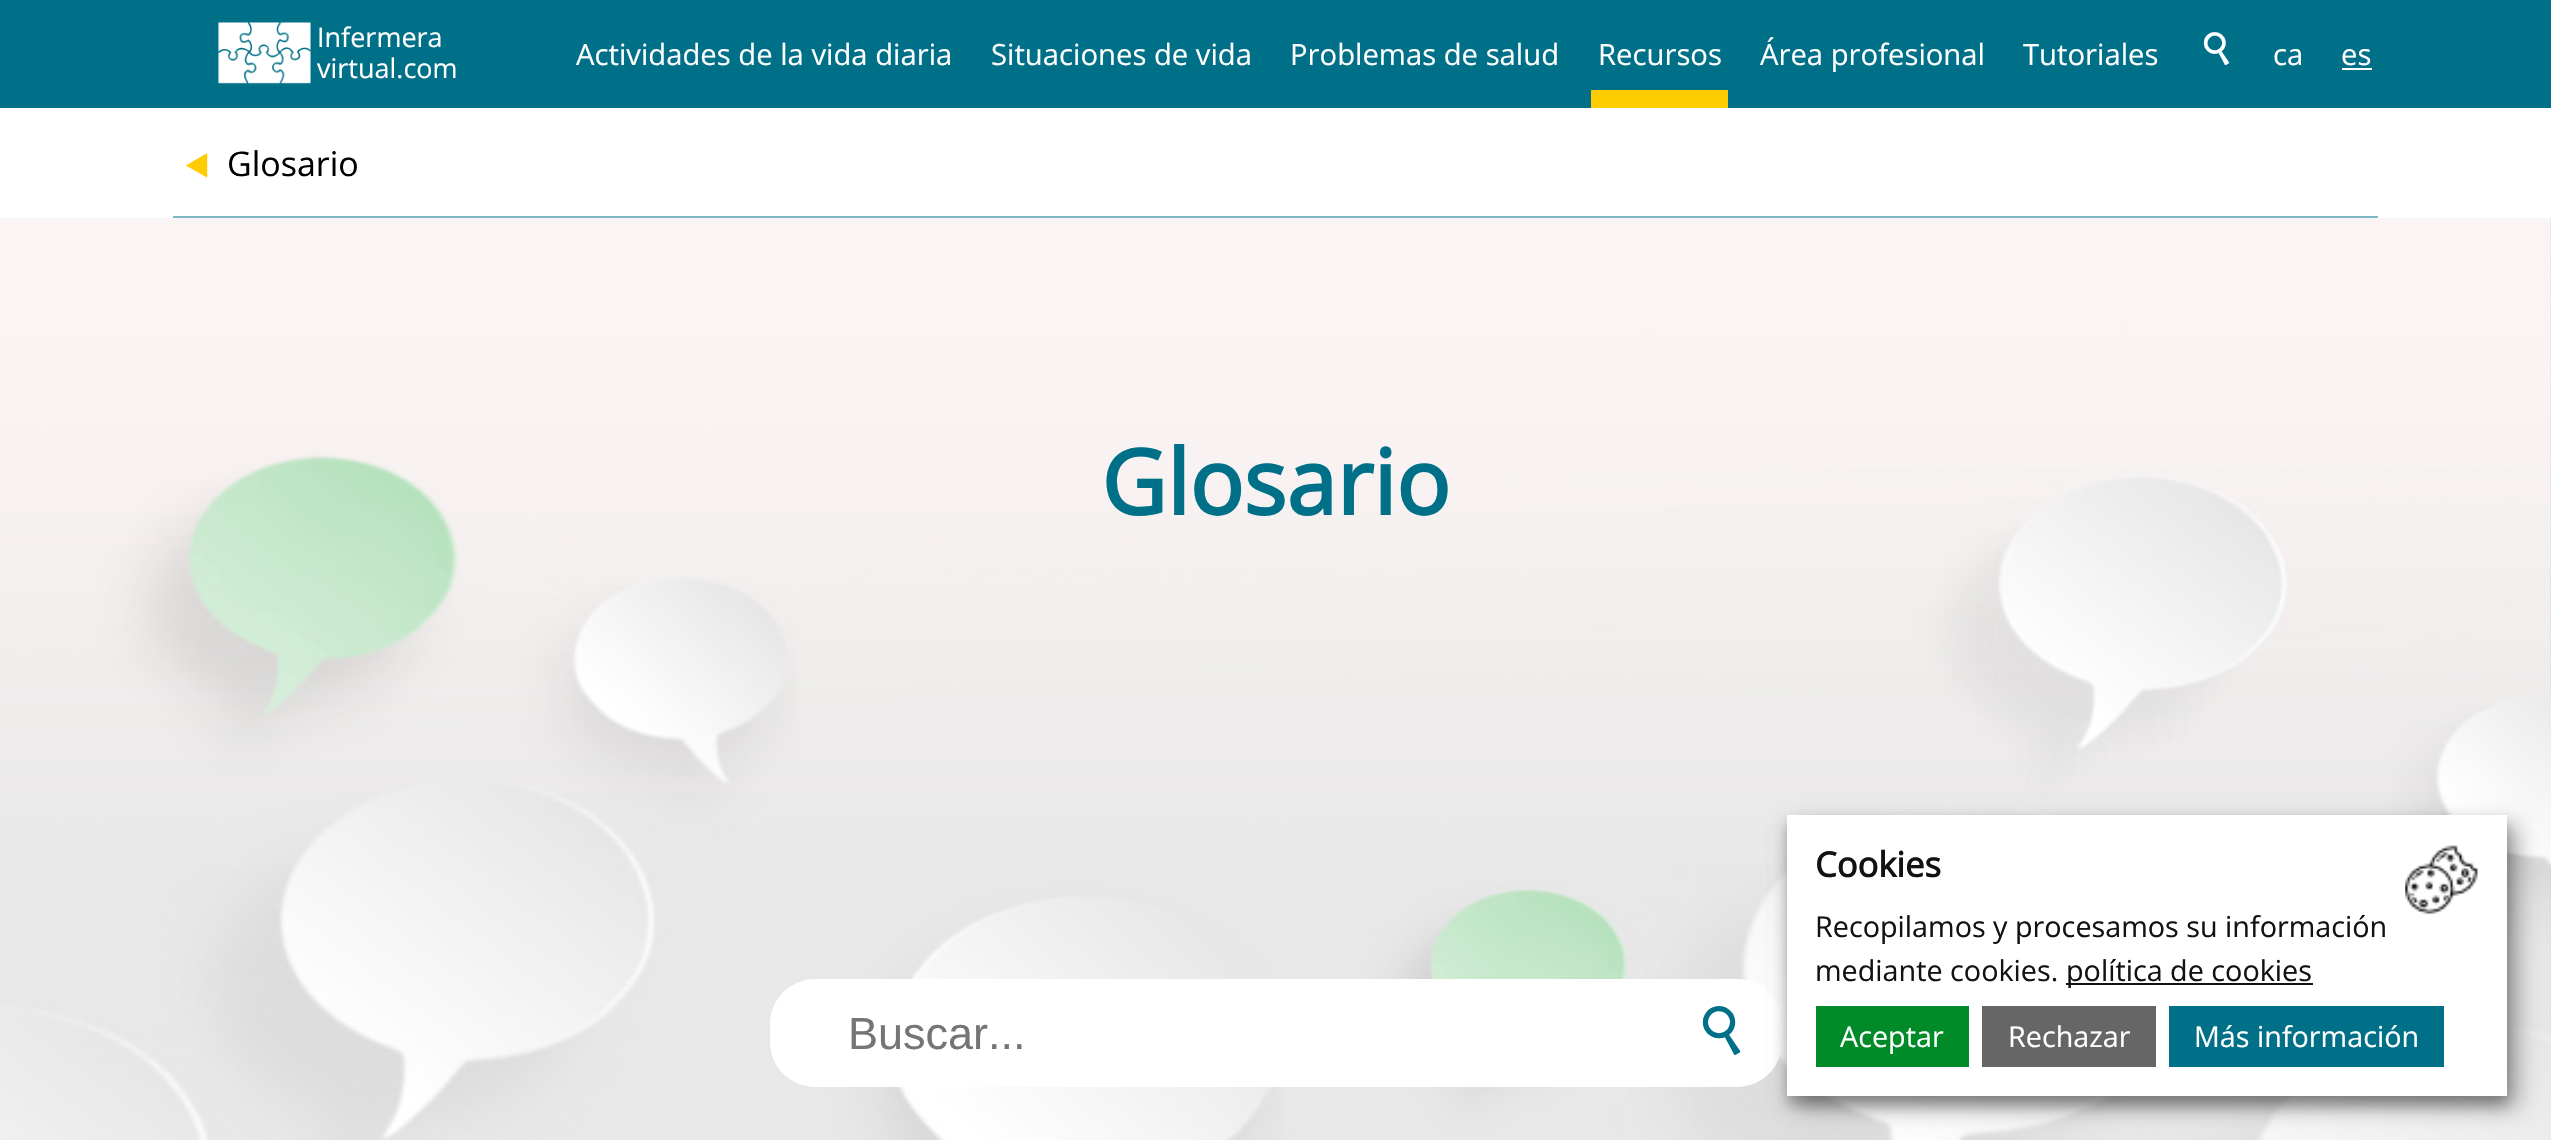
static SkFont makeFont(const char* family, int weight, float size, bool italic = false) {
  SkFontStyle style(weight, SkFontStyle::kNormal_Width,
    italic ? SkFontStyle::kItalic_Slant : SkFontStyle::kUpright_Slant);
  SkFont result(fontMgr->matchFamilyStyle(family, style), size);
  result.setSubpixel(true);
  return result;
}

static void text(SkCanvas* c, const char* s, float x, float y, const SkFont& font, SkColor color) {
  SkPaint ink(SkColor4f::FromColor(color));
  ink.setAntiAlias(true);
  c->drawString(s, x, y, font, ink);
}

static void box(SkCanvas* c, float l, float t, float r, float b, SkColor color) {
  SkPaint ink(SkColor4f::FromColor(color));
  ink.setAntiAlias(true);
  c->drawRect(SkRect::MakeLTRB(l, t, r, b), ink);
}

static void roundBox(SkCanvas* c, float l, float t, float r, float b, float radius, SkColor color) {
  SkPaint ink(SkColor4f::FromColor(color));
  ink.setAntiAlias(true);
  c->drawRoundRect(SkRect::MakeLTRB(l, t, r, b), radius, radius, ink);
}

static void picture(SkCanvas* c, const char* path, float l, float t, float r, float b) {
  auto image = SkImages::DeferredFromEncodedData(SkData::MakeFromFileName(path));
  c->drawImageRect(image, SkRect::MakeLTRB(l, t, r, b), SkSamplingOptions());
}

void draw(SkCanvas* c) {
  SkPaint paint;
  paint.setAntiAlias(true);
  c->clear(0xffffffff);
  box(c, 0, 0, 2551, 108, 0xff007088);
  picture(c, "img_01.png", 218, 22, 311, 84);
  SkFont face1 = makeFont("Open Sans", 400, 27);
  text(c, "Infermera", 317, 47, face1, 0xffffffff);
  text(c, "virtual.com", 317, 78, face1, 0xffffffff);
  SkFont face2 = makeFont("Open Sans", 400, 29.25f);
  text(c, "Actividades de la vida diaria", 576, 65, face2, 0xffffffff);
  text(c, "Situaciones de vida", 991, 65, face2, 0xffffffff);
  text(c, "Problemas de salud", 1290, 65, face2, 0xffffffff);
  box(c, 1591, 90, 1728, 108, 0xffffcc00);
  text(c, "Recursos", 1598, 65, face2, 0xffffffff);
  text(c, "Área profesional", 1760, 65, face2, 0xffffffff);
  text(c, "Tutoriales", 2023, 65, face2, 0xffffffff);
  SkFont face3 = makeFont("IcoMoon", 400, 47);
  text(c, "s", 2200, 65, face3, 0xffffffff);
  text(c, "ca", 2273, 65, face2, 0xffffffff);
  text(c, "es", 2341, 65, face2, 0xffffffff);
  box(c, 2342, 68, 2372, 70, 0xffffffff);
  box(c, 173, 216, 2378, 218, 0xff7fb7c3);
  SkFont face4 = makeFont("IcoMoon", 400, 56);
  text(c, "{", 177, 185, face4, 0xffffcc00);
  SkFont face5 = makeFont("Open Sans", 400, 34);
  text(c, "Glosario", 227, 176, face5, 0xff000000);
  picture(c, "img_02.png", 0, 218, 2551, 1140);
  SkFont face6 = makeFont("Open Sans", 700, 90);
  text(c, "Glosario", 1101, 515, face6, 0xff007088);
  roundBox(c, 770, 979, 1782, 1087, 45, 0xffffffff);
  SkFont face7 = makeFont("Liberation Sans", 400, 45);
  text(c, "Buscar...", 848, 1049, face7, 0xff757575);
  SkFont face8 = makeFont("IcoMoon", 400, 70);
  text(c, "s", 1697, 1055, face8, 0xff007088);
  paint.setColor(0x4d000000);
  paint.setMaskFilter(SkMaskFilter::MakeBlur(kNormal_SkBlurStyle, 11));
  c->drawRect(SkRect::MakeLTRB(1798, 826, 2518, 1107), paint);
  paint.setMaskFilter(nullptr);
  paint.setMaskFilter(SkMaskFilter::MakeBlur(kNormal_SkBlurStyle, 7));
  c->drawRect(SkRect::MakeLTRB(1787, 824, 2507, 1105), paint);
  paint.setMaskFilter(nullptr);
  box(c, 1787, 815, 2507, 1096, 0xffffffff);
  SkFont face9 = makeFont("Open Sans", 700, 34.5f);
  text(c, "Cookies", 1815, 877, face9, 0xff121212);
  SkFont face10 = makeFont("Open Sans", 400, 28.75f);
  text(c, "Recopilamos y procesamos su información", 1815, 937, face10, 0xff121212);
  text(c, "mediante cookies.", 1815, 981, face10, 0xff121212);
  box(c, 2066, 983, 2313, 985, 0xff121212);
  text(c, "política de cookies", 2066, 981, face10, 0xff121212);
  picture(c, "img_03.png", 2405, 845, 2478, 915);
  box(c, 1816, 1006, 1969, 1067, 0xff008a28);
  text(c, "Aceptar", 1840, 1047, face10, 0xffffffff);
  box(c, 1982, 1006, 2156, 1067, 0xff666666);
  text(c, "Rechazar", 2008, 1047, face10, 0xffffffff);
  box(c, 2169, 1006, 2444, 1067, 0xff007088);
  text(c, "Más información", 2194, 1047, face10, 0xffffffff);
}
